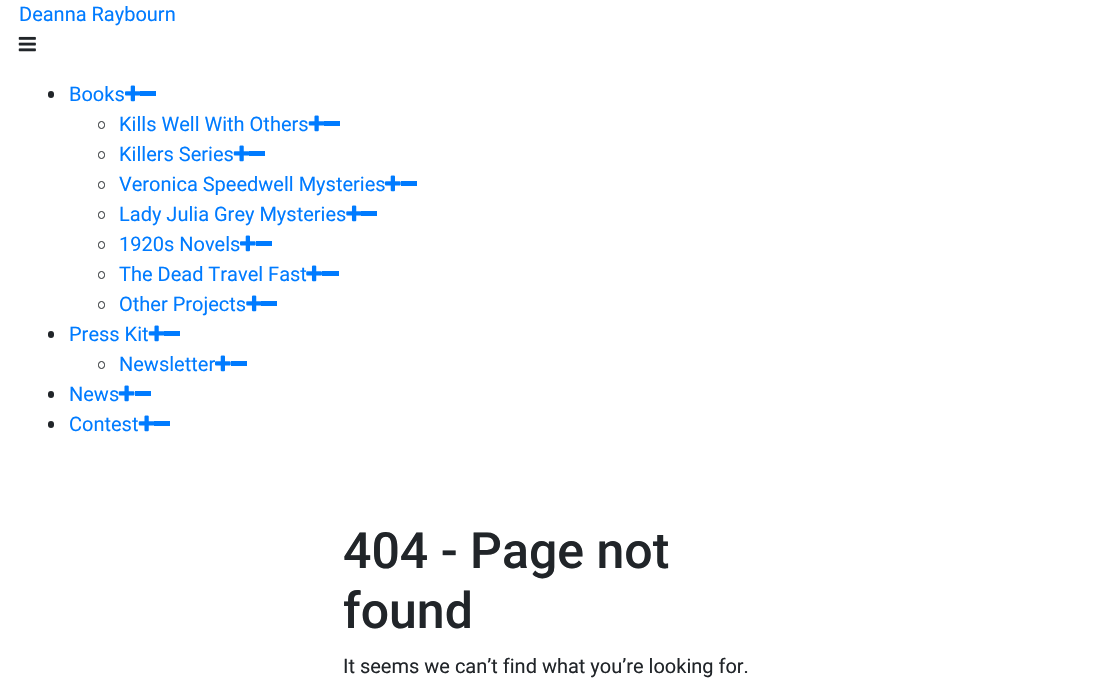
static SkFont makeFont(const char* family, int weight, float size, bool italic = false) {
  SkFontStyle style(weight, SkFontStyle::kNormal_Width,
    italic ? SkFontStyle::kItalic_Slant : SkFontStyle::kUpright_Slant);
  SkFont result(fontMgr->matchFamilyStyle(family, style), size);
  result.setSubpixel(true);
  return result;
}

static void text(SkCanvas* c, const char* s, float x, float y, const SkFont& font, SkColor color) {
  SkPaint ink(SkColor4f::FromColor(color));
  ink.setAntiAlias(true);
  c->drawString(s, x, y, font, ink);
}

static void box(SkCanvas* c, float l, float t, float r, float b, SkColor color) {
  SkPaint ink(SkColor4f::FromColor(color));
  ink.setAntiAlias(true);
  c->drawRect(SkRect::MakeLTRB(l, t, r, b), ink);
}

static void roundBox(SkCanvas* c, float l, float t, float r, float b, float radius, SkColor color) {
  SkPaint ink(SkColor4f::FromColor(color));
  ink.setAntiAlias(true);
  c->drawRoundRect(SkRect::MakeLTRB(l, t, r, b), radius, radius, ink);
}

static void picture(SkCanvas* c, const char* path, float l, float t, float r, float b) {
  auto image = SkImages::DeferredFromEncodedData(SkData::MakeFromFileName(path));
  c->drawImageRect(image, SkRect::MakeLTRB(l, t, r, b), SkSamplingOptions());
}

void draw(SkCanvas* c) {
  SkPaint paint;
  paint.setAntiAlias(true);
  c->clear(0xffffffff);
  SkFont face1 = makeFont("Roboto", 400, 20);
  text(c, "Deanna Raybourn", 19, 21, face1, 0xff007bff);
  picture(c, "img_01.png", 18, 36, 36, 52);
  roundBox(c, 48, 91, 54, 98, 3, 0xff212529);
  text(c, "Books", 69, 101, face1, 0xff007bff);
  picture(c, "img_02.png", 125, 85, 140, 102);
  box(c, 140, 91, 156, 96, 0xff007bff);
  paint.setStyle(SkPaint::kStroke_Style);
  paint.setStrokeWidth(1);
  paint.setColor(0xff212529);
  c->drawRoundRect(SkRect::MakeLTRB(98.5f, 121.5f, 104.5f, 128.5f), 3, 3, paint);
  text(c, "Kills Well With Others", 119, 131, face1, 0xff007bff);
  picture(c, "img_03.png", 308, 115, 324, 132);
  box(c, 324, 121, 340, 126, 0xff007bff);
  c->drawRoundRect(SkRect::MakeLTRB(98.5f, 151.5f, 104.5f, 158.5f), 3, 3, paint);
  text(c, "Killers Series", 119, 161, face1, 0xff007bff);
  picture(c, "img_03.png", 233, 145, 249, 162);
  box(c, 249, 151, 265, 156, 0xff007bff);
  c->drawRoundRect(SkRect::MakeLTRB(98.5f, 181.5f, 104.5f, 188.5f), 3, 3, paint);
  text(c, "Veronica Speedwell Mysteries", 119, 191, face1, 0xff007bff);
  picture(c, "img_04.png", 385, 175, 401, 192);
  box(c, 401, 181, 417, 186, 0xff007bff);
  c->drawRoundRect(SkRect::MakeLTRB(98.5f, 211.5f, 104.5f, 218.5f), 3, 3, paint);
  text(c, "Lady Julia Grey Mysteries", 119, 221, face1, 0xff007bff);
  picture(c, "img_05.png", 346, 205, 361, 222);
  box(c, 361, 211, 377, 216, 0xff007bff);
  c->drawRoundRect(SkRect::MakeLTRB(98.5f, 241.5f, 104.5f, 248.5f), 3, 3, paint);
  text(c, "1920s Novels", 119, 251, face1, 0xff007bff);
  picture(c, "img_04.png", 240, 235, 256, 252);
  box(c, 256, 241, 272, 246, 0xff007bff);
  c->drawRoundRect(SkRect::MakeLTRB(98.5f, 271.5f, 104.5f, 278.5f), 3, 3, paint);
  text(c, "The Dead Travel Fast", 119, 281, face1, 0xff007bff);
  picture(c, "img_06.png", 306, 265, 322, 282);
  box(c, 322, 271, 339, 276, 0xff007bff);
  c->drawRoundRect(SkRect::MakeLTRB(98.5f, 301.5f, 104.5f, 308.5f), 3, 3, paint);
  text(c, "Other Projects", 119, 311, face1, 0xff007bff);
  picture(c, "img_05.png", 246, 295, 261, 312);
  box(c, 261, 301, 277, 306, 0xff007bff);
  roundBox(c, 48, 331, 54, 338, 3, 0xff212529);
  text(c, "Press Kit", 69, 341, face1, 0xff007bff);
  picture(c, "img_03.png", 148, 325, 164, 342);
  box(c, 164, 331, 180, 336, 0xff007bff);
  c->drawRoundRect(SkRect::MakeLTRB(98.5f, 361.5f, 104.5f, 368.5f), 3, 3, paint);
  text(c, "Newsletter", 119, 371, face1, 0xff007bff);
  picture(c, "img_04.png", 215, 355, 231, 372);
  box(c, 231, 361, 247, 366, 0xff007bff);
  roundBox(c, 48, 391, 54, 398, 3, 0xff212529);
  text(c, "News", 69, 401, face1, 0xff007bff);
  picture(c, "img_07.png", 118, 385, 135, 402);
  box(c, 135, 391, 151, 396, 0xff007bff);
  roundBox(c, 48, 421, 54, 428, 3, 0xff212529);
  text(c, "Contest", 69, 431, face1, 0xff007bff);
  picture(c, "img_03.png", 138, 415, 154, 432);
  box(c, 154, 421, 170, 426, 0xff007bff);
  SkFont face2 = makeFont("Roboto", 500, 50);
  text(c, "404 - Page not", 343, 568, face2, 0xff212529);
  text(c, "found", 343, 628, face2, 0xff212529);
  text(c, "It seems we can’t find what you’re looking for.", 343, 673, face1, 0xff212529);
}
